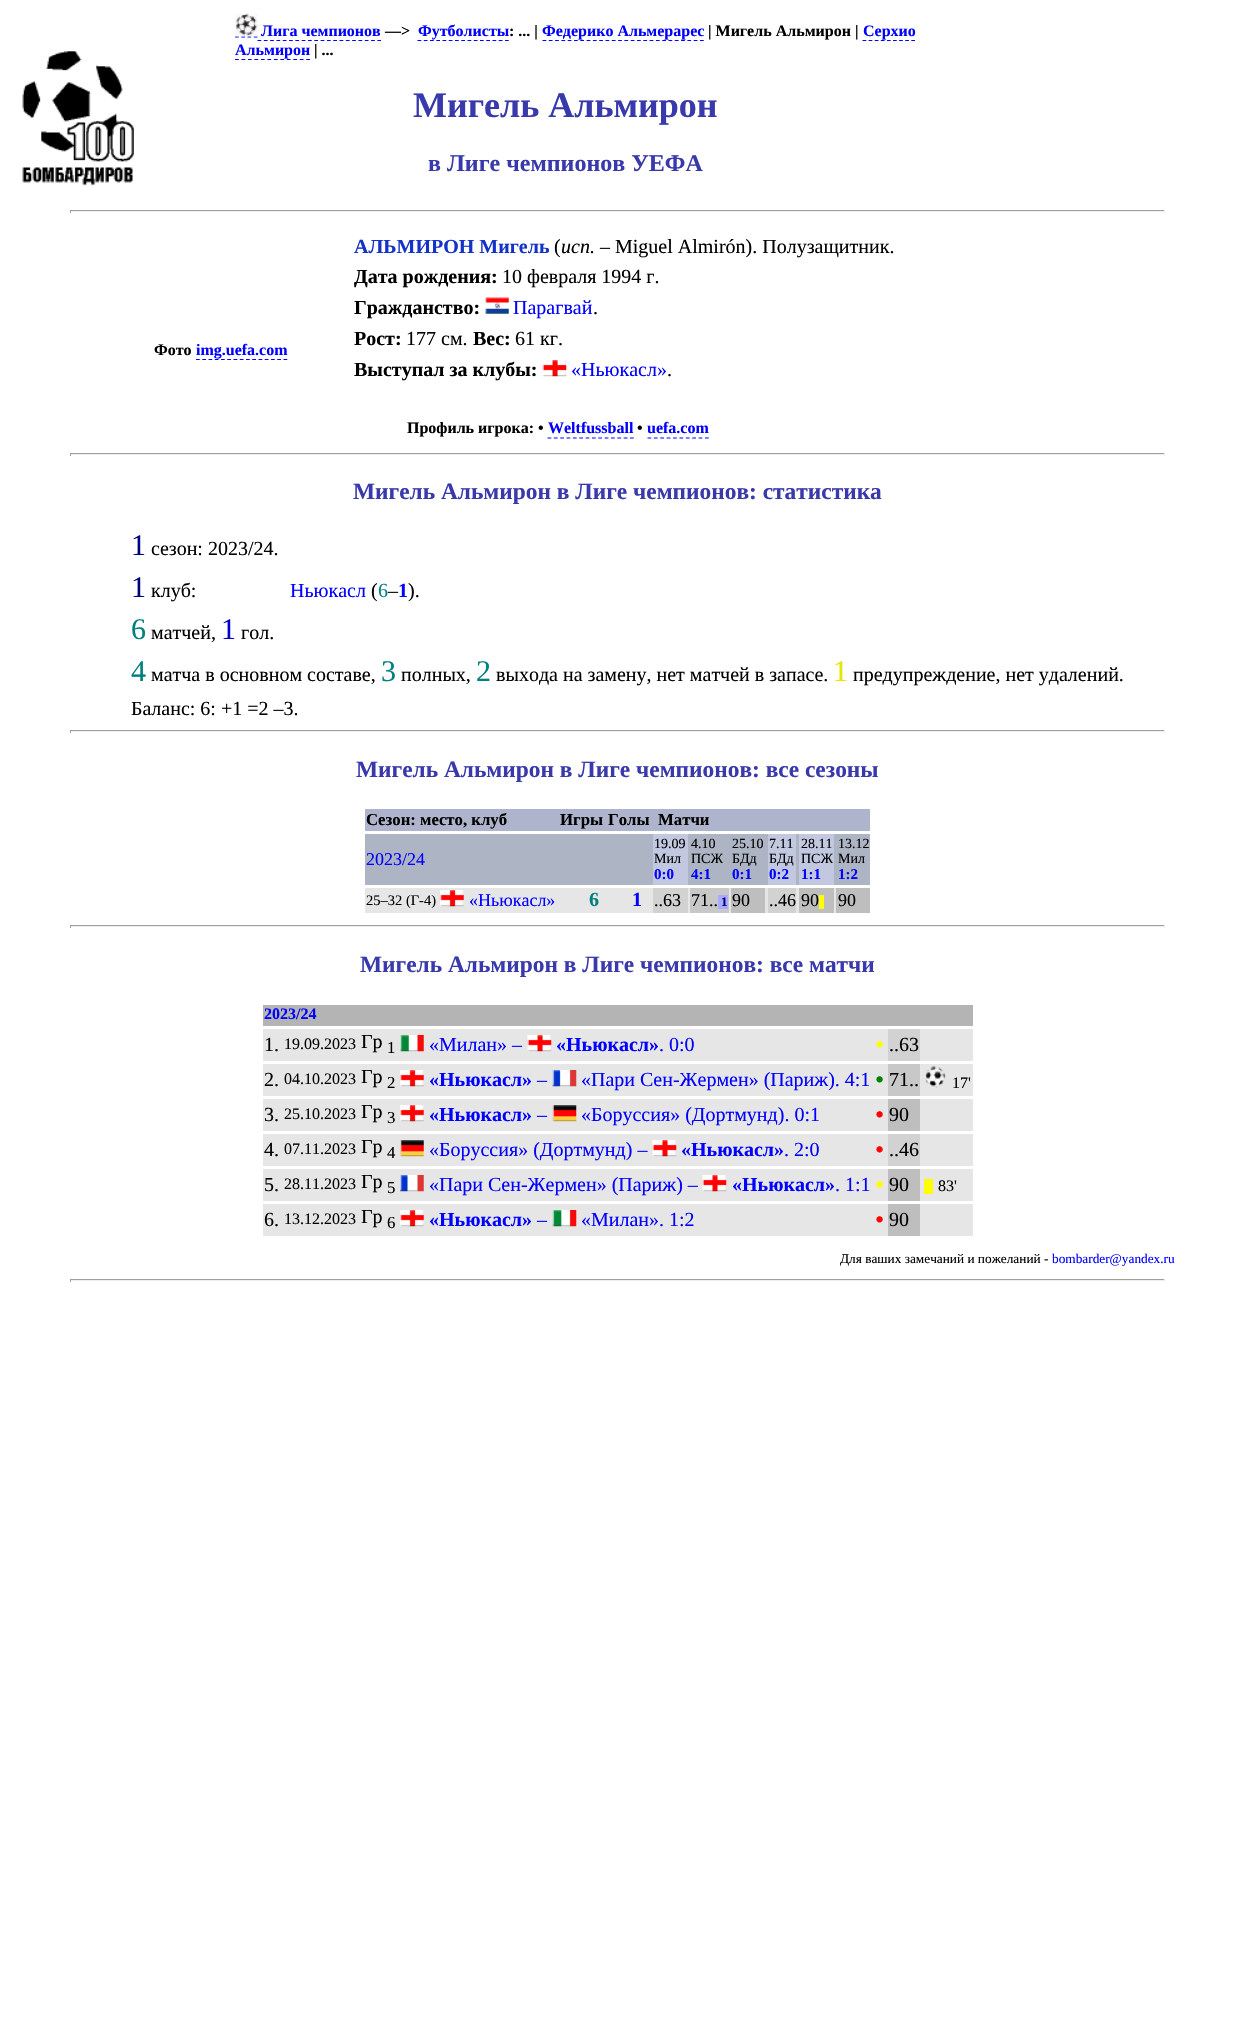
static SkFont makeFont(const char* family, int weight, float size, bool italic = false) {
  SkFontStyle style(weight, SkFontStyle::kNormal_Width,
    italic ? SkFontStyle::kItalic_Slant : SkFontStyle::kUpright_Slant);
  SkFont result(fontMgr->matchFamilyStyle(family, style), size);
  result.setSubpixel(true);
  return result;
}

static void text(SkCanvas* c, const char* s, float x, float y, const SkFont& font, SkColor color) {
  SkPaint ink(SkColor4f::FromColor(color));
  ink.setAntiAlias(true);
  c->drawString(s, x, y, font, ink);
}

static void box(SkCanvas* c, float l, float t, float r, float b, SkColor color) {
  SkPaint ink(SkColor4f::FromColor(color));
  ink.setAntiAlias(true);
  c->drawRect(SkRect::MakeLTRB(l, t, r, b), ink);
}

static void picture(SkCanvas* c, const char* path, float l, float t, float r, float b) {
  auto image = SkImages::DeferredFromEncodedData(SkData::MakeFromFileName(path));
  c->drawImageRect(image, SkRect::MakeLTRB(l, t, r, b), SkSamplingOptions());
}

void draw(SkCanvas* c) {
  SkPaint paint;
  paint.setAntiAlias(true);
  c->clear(0xffffffff);
  picture(c, "img_01.png", 22, 51, 134, 186);
  paint.setStyle(SkPaint::kStroke_Style);
  paint.setStrokeWidth(1.2f);
  paint.setColor(0xff0000ff);
  paint.setPathEffect(SkDashPathEffect::Make({{3.75f, 2.5f}}, 0));
  c->drawPath(SkPathBuilder().moveTo(235, 37).lineTo(257.5f, 37).detach(), paint);
  paint.setPathEffect(nullptr);
  picture(c, "img_02.png", 235, 13, 258, 37);
  SkFont face1 = makeFont("Liberation Serif", 700, 16);
  text(c, "Лига чемпионов", 261, 36, face1, 0xff0000ff);
  paint.setPathEffect(SkDashPathEffect::Make({{3.75f, 2.56f}}, 0));
  c->drawPath(SkPathBuilder().moveTo(257.5f, 40.5f).lineTo(381, 40.5f).detach(), paint);
  paint.setPathEffect(nullptr);
  text(c, "—>", 385, 36, face1, 0xff000000);
  paint.setPathEffect(SkDashPathEffect::Make({{3.75f, 2.5f}}, 0));
  c->drawPath(SkPathBuilder().moveTo(417.5f, 40.5f).lineTo(509, 40.5f).detach(), paint);
  paint.setPathEffect(nullptr);
  text(c, "Футболисты", 418, 36, face1, 0xff0000ff);
  text(c, ": ... |", 509, 36, face1, 0xff000000);
  paint.setPathEffect(SkDashPathEffect::Make({{3.75f, 2.55f}}, 0));
  c->drawPath(SkPathBuilder().moveTo(542.5f, 40.5f).lineTo(704, 40.5f).detach(), paint);
  paint.setPathEffect(nullptr);
  text(c, "Федерико Альмерарес", 542, 36, face1, 0xff0000ff);
  text(c, "| Мигель Альмирон |", 708, 36, face1, 0xff000000);
  paint.setPathEffect(SkDashPathEffect::Make({{3.75f, 2.35f}}, 0));
  c->drawPath(SkPathBuilder().moveTo(862.5f, 40.5f).lineTo(915, 40.5f).detach(), paint);
  paint.setPathEffect(nullptr);
  text(c, "Серхио", 863, 36, face1, 0xff0000ff);
  paint.setPathEffect(SkDashPathEffect::Make({{3.75f, 2.73f}}, 0));
  c->drawPath(SkPathBuilder().moveTo(235, 59.5f).lineTo(310, 59.5f).detach(), paint);
  paint.setPathEffect(nullptr);
  text(c, "Альмирон", 235, 55, face1, 0xff0000ff);
  text(c, "| ...", 314, 55, face1, 0xff000000);
  SkFont face2 = makeFont("Liberation Serif", 700, 36);
  text(c, "Мигель Альмирон", 413, 117, face2, 0xff3939ac);
  SkFont face3 = makeFont("Liberation Serif", 700, 24);
  text(c, "в Лиге чемпионов УЕФА", 428, 171, face3, 0xff3939ac);
  box(c, 70, 210, 1165, 211, 0xff9f9f9f);
  box(c, 1164, 210, 1165, 213, 0xffeeeeee);
  box(c, 70, 211, 1165, 212, 0xffeeeeee);
  box(c, 70, 210, 71, 213, 0xff9f9f9f);
  text(c, "Фото", 154, 355, face1, 0xff000000);
  paint.setPathEffect(SkDashPathEffect::Make({{3.75f, 2.5f}}, 0));
  c->drawPath(SkPathBuilder().moveTo(196, 359.5f).lineTo(287.5f, 359.5f).detach(), paint);
  paint.setPathEffect(nullptr);
  text(c, "img.uefa.com", 196, 355, face1, 0xff0000ff);
  SkFont face4 = makeFont("Liberation Serif", 700, 20);
  text(c, "АЛЬМИРОН Мигель", 354, 253, face4, 0xff1432c8);
  SkFont face5 = makeFont("Liberation Serif", 400, 20);
  text(c, "(", 554, 253, face5, 0xff000000);
  SkFont face6 = makeFont("Liberation Serif", 400, 20, true);
  text(c, "исп.", 561, 253, face6, 0xff000000);
  text(c, "– Miguel Almirón). Полузащитник.", 600, 253, face5, 0xff000000);
  text(c, "Дата рождения:", 354, 283, face4, 0xff000000);
  text(c, "10 февраля 1994 г.", 502, 283, face5, 0xff000000);
  text(c, "Гражданство:", 354, 314, face4, 0xff000000);
  picture(c, "img_03.png", 485, 297, 509, 314);
  text(c, "Парагвай", 513, 314, face5, 0xff0000ff);
  text(c, ".", 593, 314, face5, 0xff000000);
  text(c, "Рост:", 354, 345, face4, 0xff000000);
  text(c, "177 см.", 406, 345, face5, 0xff000000);
  text(c, "Вес:", 473, 345, face4, 0xff000000);
  text(c, "61 кг.", 515, 345, face5, 0xff000000);
  text(c, "Выступал за клубы:", 354, 376, face4, 0xff000000);
  picture(c, "img_04.png", 542, 360, 567, 377);
  text(c, "«Ньюкасл»", 571, 376, face5, 0xff0000ff);
  text(c, ".", 667, 376, face5, 0xff000000);
  text(c, "Профиль игрока: •", 407, 433, face1, 0xff000000);
  text(c, "Weltfussball", 548, 433, face1, 0xff0000ff);
  paint.setPathEffect(SkDashPathEffect::Make({{3.75f, 2.6f}}, 0));
  c->drawPath(SkPathBuilder().moveTo(547.5f, 438).lineTo(634, 438).detach(), paint);
  paint.setPathEffect(nullptr);
  text(c, "•", 637, 433, face1, 0xff000000);
  text(c, "uefa.com", 647, 433, face1, 0xff0000ff);
  paint.setPathEffect(SkDashPathEffect::Make({{3.75f, 2.64f}}, 0));
  c->drawPath(SkPathBuilder().moveTo(647.5f, 438).lineTo(709, 438).detach(), paint);
  paint.setPathEffect(nullptr);
  box(c, 70, 453, 1165, 454, 0xff9f9f9f);
  box(c, 1164, 453, 1165, 456, 0xffeeeeee);
  box(c, 70, 454, 1165, 455, 0xffeeeeee);
  box(c, 70, 453, 71, 456, 0xff9f9f9f);
  SkFont face7 = makeFont("Liberation Serif", 700, 23.4f);
  text(c, "Мигель Альмирон в Лиге чемпионов: статистика", 353, 499, face7, 0xff3939ac);
  SkFont face8 = makeFont("Liberation Serif", 400, 30);
  text(c, "1", 131, 555, face8, 0xff00007f);
  text(c, "сезон: 2023/24.", 151, 555, face5, 0xff000000);
  text(c, "1", 131, 597, face8, 0xff00007f);
  text(c, "клуб:", 151, 597, face5, 0xff000000);
  text(c, "Ньюкасл", 290, 597, face5, 0xff0000ff);
  text(c, "(", 371, 597, face5, 0xff000000);
  text(c, "6", 378, 597, face5, 0xff007f7f);
  text(c, "–", 388, 597, face5, 0xff000000);
  text(c, "1", 398, 597, face4, 0xff0000ff);
  text(c, ").", 408, 597, face5, 0xff000000);
  text(c, "6", 131, 639, face8, 0xff007f7f);
  text(c, "матчей,", 151, 639, face5, 0xff000000);
  text(c, "1", 221, 639, face8, 0xff0000c8);
  text(c, "гол.", 241, 639, face5, 0xff000000);
  text(c, "4", 131, 681, face8, 0xff007f7f);
  text(c, "матча в основном составе,", 151, 681, face5, 0xff000000);
  text(c, "3", 381, 681, face8, 0xff007f7f);
  text(c, "полных,", 401, 681, face5, 0xff000000);
  text(c, "2", 476, 681, face8, 0xff007f7f);
  text(c, "выхода на замену, нет матчей в запасе.", 496, 681, face5, 0xff000000);
  text(c, "1", 833, 681, face8, 0xffe6e600);
  text(c, "предупреждение, нет удалений.", 853, 681, face5, 0xff000000);
  text(c, "Баланс: 6: +1 =2 –3.", 131, 715, face5, 0xff000000);
  box(c, 70, 730, 1165, 731, 0xff9f9f9f);
  box(c, 1164, 730, 1165, 733, 0xffeeeeee);
  box(c, 70, 731, 1165, 732, 0xffeeeeee);
  box(c, 70, 730, 71, 733, 0xff9f9f9f);
  text(c, "Мигель Альмирон в Лиге чемпионов: все сезоны", 356, 777, face7, 0xff3939ac);
  box(c, 365, 809, 870, 831, 0xffadb4cb);
  SkFont face9 = makeFont("Liberation Serif", 700, 16.75f);
  text(c, "Сезон: место, клуб", 366, 825, face9, 0xff000000);
  text(c, "Игры", 560, 825, face9, 0xff000000);
  text(c, "Голы", 608, 825, face9, 0xff000000);
  text(c, "Матчи", 658, 825, face9, 0xff000000);
  box(c, 365, 834, 870, 885, 0xffadb4c3);
  SkFont face10 = makeFont("Liberation Serif", 400, 18);
  text(c, "2023/24", 366, 865, face10, 0xff0000ff);
  box(c, 653, 834, 688, 885, 0xffc1c8df);
  SkFont face11 = makeFont("Liberation Serif", 400, 14);
  text(c, "19.09", 654, 848, face11, 0xff000000);
  text(c, "Мил", 654, 863, face11, 0xff000000);
  SkFont face12 = makeFont("Liberation Serif", 700, 15);
  text(c, "0:0", 654, 879, face12, 0xff0000ff);
  text(c, "4.10", 691, 848, face11, 0xff000000);
  text(c, "ПСЖ", 691, 863, face11, 0xff000000);
  text(c, "4:1", 691, 879, face12, 0xff0000ff);
  text(c, "25.10", 732, 848, face11, 0xff000000);
  text(c, "БДд", 732, 863, face11, 0xff000000);
  text(c, "0:1", 732, 879, face12, 0xff0000ff);
  box(c, 768, 834, 796, 885, 0xffc1c8df);
  text(c, "7.11", 769, 848, face11, 0xff000000);
  text(c, "БДд", 769, 863, face11, 0xff000000);
  text(c, "0:2", 769, 879, face12, 0xff0000ff);
  box(c, 799, 834, 834, 885, 0xffc1c8df);
  text(c, "28.11", 801, 848, face11, 0xff000000);
  text(c, "ПСЖ", 801, 863, face11, 0xff000000);
  text(c, "1:1", 801, 879, face12, 0xff0000ff);
  text(c, "13.12", 838, 848, face11, 0xff000000);
  text(c, "Мил", 838, 863, face11, 0xff000000);
  text(c, "1:2", 838, 879, face12, 0xff0000ff);
  box(c, 365, 888, 836, 913, 0xffe6e6e6);
  SkFont face13 = makeFont("Liberation Serif", 400, 14.5f);
  text(c, "25–32 (Г-4)", 366, 905, face13, 0xff000000);
  picture(c, "img_05.png", 440, 890, 464, 907);
  text(c, "«Ньюкасл»", 469, 906, face10, 0xff0000ff);
  text(c, "6", 589, 906, face4, 0xff007f7f);
  text(c, "1", 632, 906, face4, 0xff0000ff);
  box(c, 653, 888, 688, 913, 0xffd2d2d2);
  text(c, "..63", 654, 906, face10, 0xff000000);
  box(c, 690, 888, 729, 913, 0xffc8c8c8);
  text(c, "71..", 691, 906, face10, 0xff000000);
  box(c, 718, 895, 728, 909, 0xffaaaaff);
  SkFont face14 = makeFont("Liberation Serif", 700, 13);
  text(c, "1", 721, 906, face14, 0xff00007f);
  box(c, 731, 888, 765, 913, 0xffbebebe);
  text(c, "90", 732, 906, face10, 0xff000000);
  box(c, 768, 888, 796, 913, 0xffd2d2d2);
  text(c, "..46", 769, 906, face10, 0xff000000);
  box(c, 799, 888, 834, 913, 0xffbebebe);
  text(c, "90", 801, 906, face10, 0xff000000);
  box(c, 819, 895, 824, 909, 0xffffff00);
  box(c, 836, 888, 870, 913, 0xffbebebe);
  text(c, "90", 838, 906, face10, 0xff000000);
  box(c, 70, 925, 1165, 926, 0xff9f9f9f);
  box(c, 1164, 925, 1165, 928, 0xffeeeeee);
  box(c, 70, 926, 1165, 927, 0xffeeeeee);
  box(c, 70, 925, 71, 928, 0xff9f9f9f);
  text(c, "Мигель Альмирон в Лиге чемпионов: все матчи", 360, 972, face7, 0xff3939ac);
  box(c, 263, 1005, 973, 1026, 0xffb4b4b4);
  text(c, "2023/24", 264, 1019, face1, 0xff0000ff);
  box(c, 263, 1029, 973, 1061, 0xffe6e6e6);
  text(c, "1.", 264, 1051, face5, 0xff000000);
  SkFont face15 = makeFont("Liberation Serif", 400, 16);
  text(c, "19.09.2023", 284, 1049, face15, 0xff000000);
  text(c, "Гр", 361, 1048, face5, 0xff000000);
  SkFont face16 = makeFont("Liberation Serif", 400, 16.75f);
  text(c, "1", 387, 1053, face16, 0xff000000);
  picture(c, "img_06.png", 400, 1035, 424, 1052);
  text(c, "«Милан» –", 429, 1051, face5, 0xff0000ff);
  picture(c, "img_07.png", 527, 1035, 552, 1052);
  text(c, "«Ньюкасл»", 556, 1051, face4, 0xff0000ff);
  text(c, ". 0:0", 659, 1051, face5, 0xff0000ff);
  SkFont face17 = makeFont("Liberation Serif", 400, 26);
  text(c, "•", 875, 1053, face17, 0xffffff00);
  box(c, 888, 1029, 920, 1061, 0xffd2d2d2);
  text(c, "..63", 889, 1051, face5, 0xff000000);
  box(c, 263, 1064, 973, 1096, 0xffe6e6e6);
  text(c, "2.", 264, 1086, face5, 0xff000000);
  text(c, "04.10.2023", 284, 1084, face15, 0xff000000);
  text(c, "Гр", 361, 1083, face5, 0xff000000);
  text(c, "2", 387, 1088, face16, 0xff000000);
  picture(c, "img_08.png", 400, 1070, 424, 1087);
  text(c, "«Ньюкасл»", 429, 1086, face4, 0xff0000ff);
  text(c, "–", 537, 1086, face5, 0xff0000ff);
  picture(c, "img_09.png", 552, 1070, 577, 1087);
  text(c, "«Пари Сен-Жермен» (Париж). 4:1", 581, 1086, face5, 0xff0000ff);
  text(c, "•", 875, 1088, face17, 0xff008000);
  box(c, 888, 1064, 920, 1096, 0xffc8c8c8);
  text(c, "71..", 889, 1086, face5, 0xff000000);
  picture(c, "img_10.png", 925, 1066, 946, 1088);
  text(c, "17'", 952, 1088, face15, 0xff000000);
  box(c, 263, 1099, 973, 1131, 0xffe6e6e6);
  text(c, "3.", 264, 1121, face5, 0xff000000);
  text(c, "25.10.2023", 284, 1119, face15, 0xff000000);
  text(c, "Гр", 361, 1118, face5, 0xff000000);
  text(c, "3", 387, 1123, face16, 0xff000000);
  picture(c, "img_08.png", 400, 1105, 424, 1122);
  text(c, "«Ньюкасл»", 429, 1121, face4, 0xff0000ff);
  text(c, "–", 537, 1121, face5, 0xff0000ff);
  picture(c, "img_11.png", 552, 1105, 577, 1122);
  text(c, "«Боруссия» (Дортмунд). 0:1", 581, 1121, face5, 0xff0000ff);
  text(c, "•", 875, 1123, face17, 0xffff0000);
  box(c, 888, 1099, 920, 1131, 0xffbebebe);
  text(c, "90", 889, 1121, face5, 0xff000000);
  box(c, 263, 1134, 973, 1166, 0xffe6e6e6);
  text(c, "4.", 264, 1156, face5, 0xff000000);
  text(c, "07.11.2023", 284, 1154, face15, 0xff000000);
  text(c, "Гр", 361, 1153, face5, 0xff000000);
  text(c, "4", 387, 1158, face16, 0xff000000);
  picture(c, "img_12.png", 400, 1140, 424, 1157);
  text(c, "«Боруссия» (Дортмунд) –", 429, 1156, face5, 0xff0000ff);
  picture(c, "img_13.png", 652, 1140, 677, 1157);
  text(c, "«Ньюкасл»", 681, 1156, face4, 0xff0000ff);
  text(c, ". 2:0", 784, 1156, face5, 0xff0000ff);
  text(c, "•", 875, 1158, face17, 0xffff0000);
  box(c, 888, 1134, 920, 1166, 0xffd2d2d2);
  text(c, "..46", 889, 1156, face5, 0xff000000);
  box(c, 263, 1169, 973, 1201, 0xffe6e6e6);
  text(c, "5.", 264, 1191, face5, 0xff000000);
  text(c, "28.11.2023", 284, 1189, face15, 0xff000000);
  text(c, "Гр", 361, 1188, face5, 0xff000000);
  text(c, "5", 387, 1193, face16, 0xff000000);
  picture(c, "img_14.png", 400, 1175, 424, 1192);
  text(c, "«Пари Сен-Жермен» (Париж) –", 429, 1191, face5, 0xff0000ff);
  picture(c, "img_13.png", 702, 1175, 727, 1192);
  text(c, "«Ньюкасл»", 732, 1191, face4, 0xff0000ff);
  text(c, ". 1:1", 835, 1191, face5, 0xff0000ff);
  text(c, "•", 875, 1193, face17, 0xffffff00);
  box(c, 888, 1169, 920, 1201, 0xffbebebe);
  text(c, "90", 889, 1191, face5, 0xff000000);
  box(c, 924, 1179, 933, 1194, 0xffffff00);
  text(c, "83'", 938, 1191, face15, 0xff000000);
  box(c, 263, 1204, 973, 1236, 0xffe6e6e6);
  text(c, "6.", 264, 1226, face5, 0xff000000);
  text(c, "13.12.2023", 284, 1224, face15, 0xff000000);
  text(c, "Гр", 361, 1223, face5, 0xff000000);
  text(c, "6", 387, 1228, face16, 0xff000000);
  picture(c, "img_08.png", 400, 1210, 424, 1227);
  text(c, "«Ньюкасл»", 429, 1226, face4, 0xff0000ff);
  text(c, "–", 537, 1226, face5, 0xff0000ff);
  picture(c, "img_15.png", 552, 1210, 577, 1227);
  text(c, "«Милан». 1:2", 581, 1226, face5, 0xff0000ff);
  text(c, "•", 875, 1228, face17, 0xffff0000);
  box(c, 888, 1204, 920, 1236, 0xffbebebe);
  text(c, "90", 889, 1226, face5, 0xff000000);
  SkFont face18 = makeFont("Liberation Serif", 400, 13.3f);
  text(c, "Для ваших замечаний и пожеланий -", 840, 1263, face18, 0xff000000);
  text(c, "bombarder@yandex.ru", 1052, 1263, face18, 0xff0000ff);
  box(c, 70, 1279, 1165, 1280, 0xff9f9f9f);
  box(c, 1164, 1279, 1165, 1282, 0xffeeeeee);
  box(c, 70, 1280, 1165, 1281, 0xffeeeeee);
  box(c, 70, 1279, 71, 1282, 0xff9f9f9f);
}
